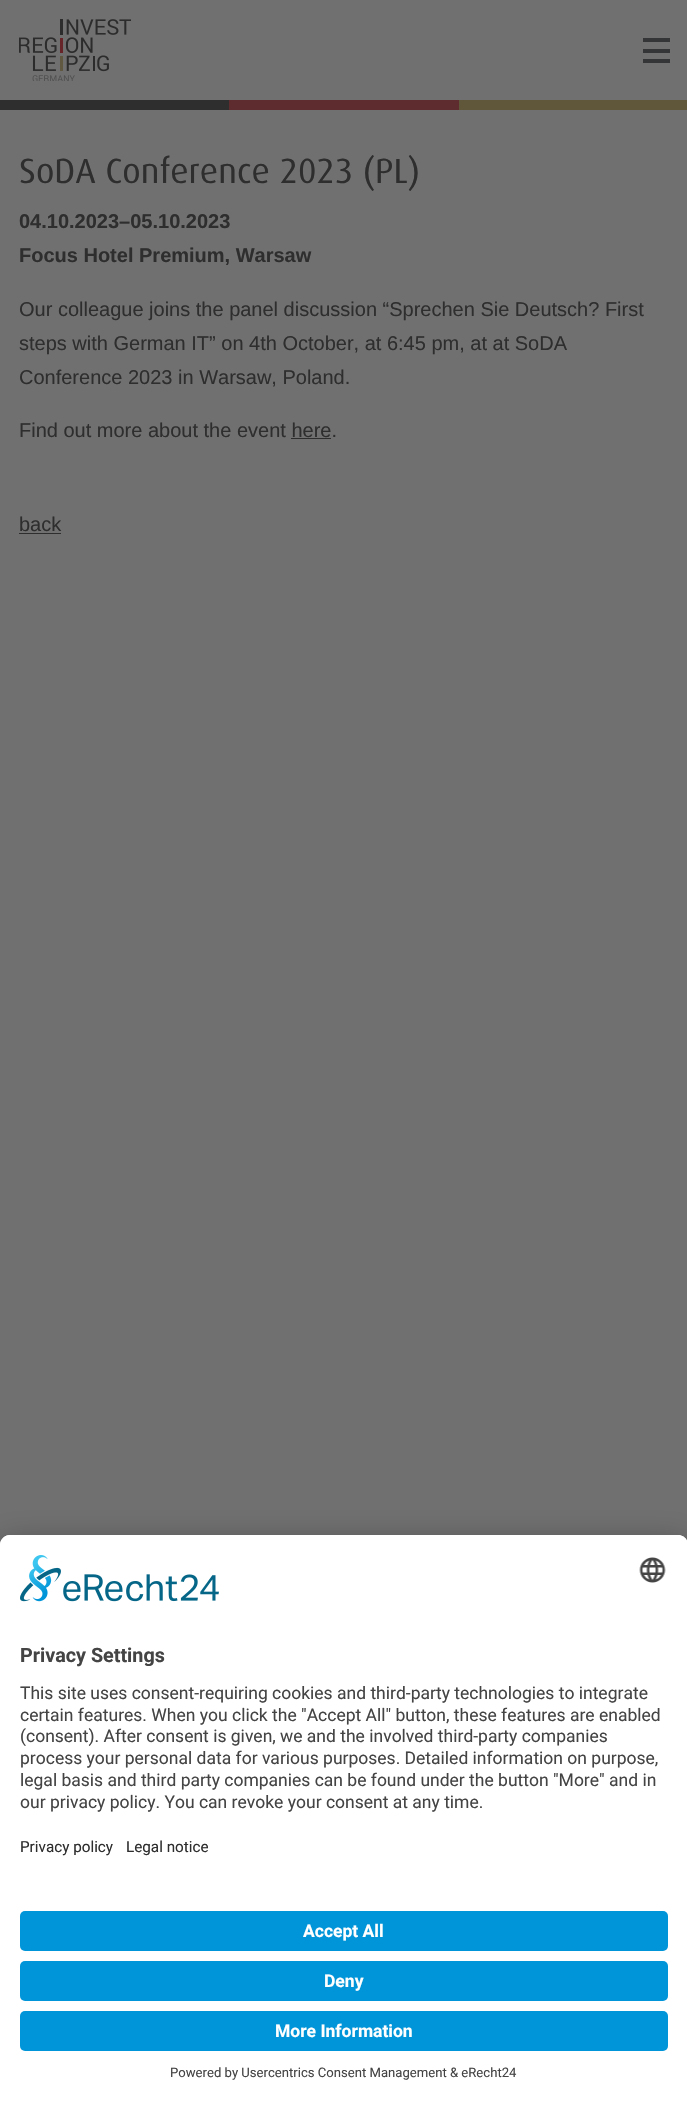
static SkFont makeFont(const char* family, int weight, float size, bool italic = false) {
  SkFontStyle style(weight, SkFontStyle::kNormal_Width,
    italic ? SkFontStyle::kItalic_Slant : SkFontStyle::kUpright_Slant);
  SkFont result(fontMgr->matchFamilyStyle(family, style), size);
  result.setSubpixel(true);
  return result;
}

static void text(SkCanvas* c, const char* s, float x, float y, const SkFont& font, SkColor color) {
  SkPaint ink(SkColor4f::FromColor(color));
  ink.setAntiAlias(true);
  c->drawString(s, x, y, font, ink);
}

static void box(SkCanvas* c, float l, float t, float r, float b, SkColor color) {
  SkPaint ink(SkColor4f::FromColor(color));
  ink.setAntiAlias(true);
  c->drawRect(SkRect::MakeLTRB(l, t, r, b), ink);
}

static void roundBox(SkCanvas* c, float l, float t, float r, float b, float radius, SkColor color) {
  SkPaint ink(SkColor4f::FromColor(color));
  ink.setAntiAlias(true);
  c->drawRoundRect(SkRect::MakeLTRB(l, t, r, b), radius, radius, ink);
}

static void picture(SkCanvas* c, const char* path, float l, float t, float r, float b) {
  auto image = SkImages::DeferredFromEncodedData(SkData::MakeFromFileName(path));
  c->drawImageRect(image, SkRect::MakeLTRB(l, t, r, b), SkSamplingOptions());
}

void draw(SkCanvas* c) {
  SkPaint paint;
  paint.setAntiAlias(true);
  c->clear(0xff707070);
  picture(c, "img_01.png", 19, 19, 131, 81);
  box(c, 643, 38, 670, 42, 0xff333537);
  box(c, 643, 49, 670, 53, 0xff333537);
  box(c, 643, 59, 670, 63, 0xff333537);
  box(c, 0, 100, 229, 110, 0xff2e2e2e);
  box(c, 229, 100, 459, 110, 0xff5e2c2f);
  box(c, 459, 100, 687, 110, 0xff60573a);
  SkFont face1 = makeFont("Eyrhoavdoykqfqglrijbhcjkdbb", 400, 35);
  text(c, "SoDA Conference 2023 (PL)", 19, 183, face1, 0xff2e2e2e);
  SkFont face2 = makeFont("Liberation Sans", 700, 20);
  text(c, "04.10.2023–05.10.2023", 19, 228, face2, 0xff2e2e2e);
  text(c, "Focus Hotel Premium, Warsaw", 19, 262, face2, 0xff2e2e2e);
  SkFont face3 = makeFont("Liberation Sans", 400, 20);
  text(c, "Our colleague joins the panel discussion “Sprechen Sie Deutsch? First", 19, 316, face3, 0xff2e2e2e);
  text(c, "steps with German IT” on 4th October, at 6:45 pm, at at SoDA", 19, 350, face3, 0xff2e2e2e);
  text(c, "Conference 2023 in Warsaw, Poland.", 19, 384, face3, 0xff2e2e2e);
  text(c, "Find out more about the event here.", 19, 437, face3, 0xff2e2e2e);
  box(c, 291, 438, 331, 439, 0xff2e2e2e);
  text(c, "back", 19, 531, face3, 0xff2e2e2e);
  box(c, 19, 533, 61, 534, 0xff2e2e2e);
  paint.setColor(0x4d000000);
  paint.setMaskFilter(SkMaskFilter::MakeBlur(kNormal_SkBlurStyle, 17.5f));
  c->drawRoundRect(SkRect::MakeLTRB(0, 1560, 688, 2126), 10, 10, paint);
  paint.setMaskFilter(nullptr);
  paint.setColor(0x38000000);
  paint.setMaskFilter(SkMaskFilter::MakeBlur(kNormal_SkBlurStyle, 16));
  c->drawRoundRect(SkRect::MakeLTRB(0, 1541, 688, 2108), 10, 10, paint);
  paint.setMaskFilter(nullptr);
  paint.setColor(0xffffffff);
  c->drawPath(SkPathBuilder().moveTo(10, 1535).lineTo(678, 1535).cubicTo(683.5f, 1535, 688, 1539.5f, 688, 1545).lineTo(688, 2101).lineTo(0, 2101).lineTo(0, 1545).cubicTo(0, 1539.5f, 4.5f, 1535, 10, 1535).close().detach(), paint);
  c->drawPath(SkPathBuilder().moveTo(10, 1535).lineTo(678, 1535).cubicTo(683.5f, 1535, 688, 1539.5f, 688, 1545).lineTo(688, 1896).lineTo(0, 1896).lineTo(0, 1545).cubicTo(0, 1539.5f, 4.5f, 1535, 10, 1535).close().detach(), paint);
  picture(c, "img_02.png", 20, 1555, 219, 1602);
  picture(c, "img_03.png", 639, 1557, 666, 1583);
  SkFont face4 = makeFont("Roboto", 700, 19.75f);
  text(c, "Privacy Settings", 20, 1662, face4, 0xff444444);
  SkFont face5 = makeFont("Roboto", 400, 17.5f);
  text(c, "This site uses consent-requiring cookies and third-party technologies to integrate", 20, 1699, face5, 0xff444444);
  text(c, "certain features. When you click the \"Accept All\" button, these features are enabled", 20, 1721, face5, 0xff444444);
  text(c, "(consent). After consent is given, we and the involved third-party companies", 20, 1742, face5, 0xff444444);
  text(c, "process your personal data for various purposes. Detailed information on purpose,", 20, 1764, face5, 0xff444444);
  text(c, "legal basis and third party companies can be found under the button \"More\" and in", 20, 1786, face5, 0xff444444);
  text(c, "our privacy policy. You can revoke your consent at any time.", 20, 1808, face5, 0xff444444);
  SkFont face6 = makeFont("Roboto", 400, 15.25f);
  text(c, "Privacy policy", 20, 1852, face6, 0xff2e2e2e);
  text(c, "Legal notice", 126, 1852, face6, 0xff2e2e2e);
  roundBox(c, 20, 1911, 668, 1951, 5, 0xff0094d8);
  SkFont face7 = makeFont("Roboto", 700, 17.5f);
  text(c, "Accept All", 303, 1937, face7, 0xffffffff);
  roundBox(c, 20, 1961, 668, 2001, 5, 0xff0094d8);
  text(c, "Deny", 324, 1987, face7, 0xffffffff);
  roundBox(c, 20, 2011, 668, 2051, 5, 0xff0094d8);
  text(c, "More Information", 275, 2037, face7, 0xffffffff);
  SkFont face8 = makeFont("Roboto", 400, 13.1f);
  text(c, "Powered by Usercentrics Consent Management & eRecht24", 170, 2077, face8, 0xff444444);
}
